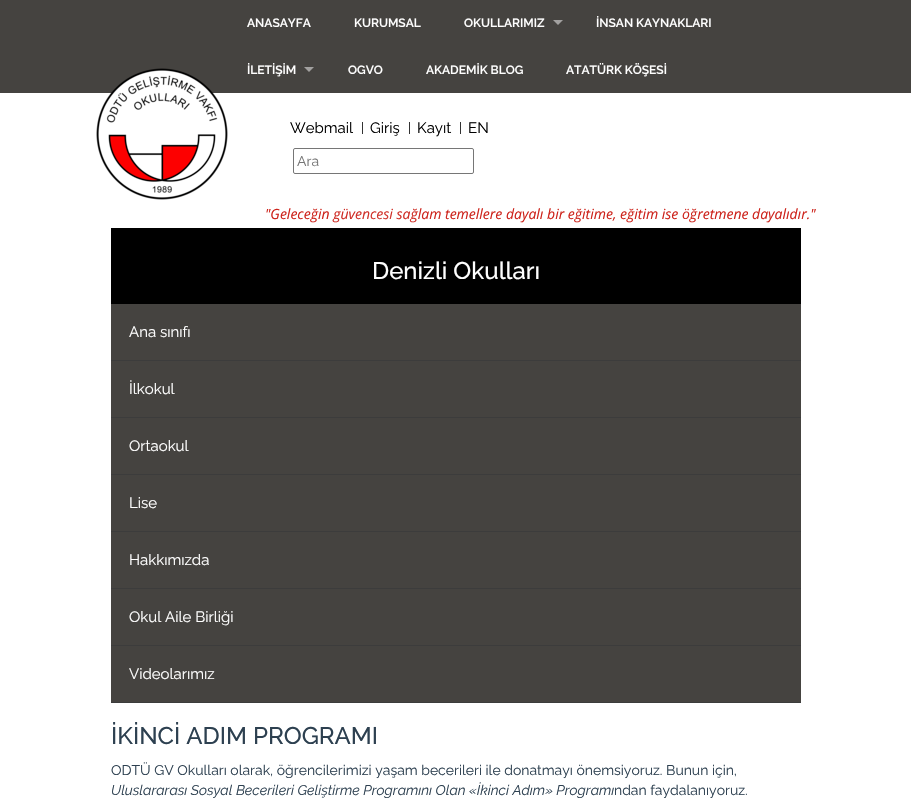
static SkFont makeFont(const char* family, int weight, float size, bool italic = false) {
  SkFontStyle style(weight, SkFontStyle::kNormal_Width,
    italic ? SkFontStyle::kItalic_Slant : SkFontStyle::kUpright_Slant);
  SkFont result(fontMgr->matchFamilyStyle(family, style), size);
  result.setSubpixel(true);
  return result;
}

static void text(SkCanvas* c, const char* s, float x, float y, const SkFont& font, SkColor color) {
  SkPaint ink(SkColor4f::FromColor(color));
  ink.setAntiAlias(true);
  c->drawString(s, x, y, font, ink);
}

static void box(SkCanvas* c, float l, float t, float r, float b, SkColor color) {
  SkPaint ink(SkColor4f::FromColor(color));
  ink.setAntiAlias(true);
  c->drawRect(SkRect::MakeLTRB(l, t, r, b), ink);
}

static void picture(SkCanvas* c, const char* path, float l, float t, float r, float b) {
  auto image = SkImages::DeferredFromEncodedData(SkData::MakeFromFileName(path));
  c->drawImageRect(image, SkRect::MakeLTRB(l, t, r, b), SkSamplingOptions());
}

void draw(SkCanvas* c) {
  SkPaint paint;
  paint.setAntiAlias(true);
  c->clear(0xffffffff);
  box(c, 0, 0, 911, 93, 0xff454340);
  SkFont face1 = makeFont("Raleway", 600, 12);
  text(c, "ANASAYFA", 247, 27, face1, 0xffffffff);
  text(c, "KURUMSAL", 354, 27, face1, 0xffffffff);
  text(c, "OKULLARIMIZ", 464, 27, face1, 0xffffffff);
  paint.setColor(0xffa2a1a0);
  c->drawPath(SkPathBuilder().moveTo(553, 20).lineTo(563, 20).lineTo(558, 25).close().detach(), paint);
  text(c, "İNSAN KAYNAKLARI", 596, 27, face1, 0xffffffff);
  text(c, "İLETİŞİM", 247, 74, face1, 0xffffffff);
  c->drawPath(SkPathBuilder().moveTo(304, 67).lineTo(314, 67).lineTo(309, 72).close().detach(), paint);
  text(c, "OGVO", 348, 74, face1, 0xffffffff);
  text(c, "AKADEMİK BLOG", 426, 74, face1, 0xffffffff);
  text(c, "ATATÜRK KÖŞESİ", 566, 74, face1, 0xffffffff);
  picture(c, "img_01.png", 96, 68, 228, 200);
  SkFont face2 = makeFont("Raleway", 400, 15);
  text(c, "Webmail", 290, 133, face2, 0xff000000);
  box(c, 362, 122, 363, 134, 0xff333333);
  text(c, "Giriş", 370, 133, face2, 0xff000000);
  box(c, 409, 122, 410, 134, 0xff333333);
  text(c, "Kayıt", 417, 133, face2, 0xff000000);
  box(c, 460, 122, 461, 134, 0xff333333);
  text(c, "EN", 468, 133, face2, 0xff000000);
  paint.setStyle(SkPaint::kStroke_Style);
  paint.setStrokeWidth(1);
  paint.setColor(0xff767676);
  c->drawRoundRect(SkRect::MakeLTRB(293.5f, 148.5f, 473.5f, 173.5f), 1.5f, 1.5f, paint);
  SkFont face3 = makeFont("Raleway", 400, 14);
  text(c, "Ara", 297, 166, face3, 0xff757575);
  SkFont face4 = makeFont("Open Sans", 400, 14, true);
  text(c, "\"Geleceğin güvencesi sağlam temellere dayalı bir eğitime, eğitim ise öğretmene dayalıdır.\"", 265, 219, face4, 0xffcd221a);
  picture(c, "img_02.png", 330, 209, 429, 228);
  box(c, 111, 228, 801, 304, 0xff000000);
  SkFont face5 = makeFont("Raleway", 500, 24);
  text(c, "Denizli Okulları", 372, 279, face5, 0xffffffff);
  box(c, 111, 304, 801, 360, 0xff454340);
  box(c, 111, 360, 801, 361, 0xff3c3c3c);
  text(c, "Ana sınıfı", 129, 337, face2, 0xffffffff);
  box(c, 111, 361, 801, 417, 0xff454340);
  box(c, 111, 417, 801, 418, 0xff3c3c3c);
  text(c, "İlkokul", 129, 394, face2, 0xffffffff);
  box(c, 111, 418, 801, 474, 0xff454340);
  box(c, 111, 474, 801, 475, 0xff3c3c3c);
  text(c, "Ortaokul", 129, 451, face2, 0xffffffff);
  box(c, 111, 475, 801, 531, 0xff454340);
  box(c, 111, 531, 801, 532, 0xff3c3c3c);
  text(c, "Lise", 129, 508, face2, 0xffffffff);
  box(c, 111, 532, 801, 588, 0xff454340);
  box(c, 111, 588, 801, 589, 0xff3c3c3c);
  text(c, "Hakkımızda", 129, 565, face2, 0xffffffff);
  box(c, 111, 589, 801, 645, 0xff454340);
  box(c, 111, 645, 801, 646, 0xff3c3c3c);
  text(c, "Okul Aile Birliği", 129, 622, face2, 0xffffffff);
  box(c, 111, 646, 801, 702, 0xff454340);
  box(c, 111, 702, 801, 703, 0xff3c3c3c);
  text(c, "Videolarımız", 129, 679, face2, 0xffffffff);
  text(c, "İKİNCİ ADIM PROGRAMI", 111, 744, face5, 0xff2d4050);
  text(c, "ODTÜ GV Okulları olarak, öğrencilerimizi yaşam becerileri ile donatmayı önemsiyoruz. Bunun için,", 111, 775, face3, 0xff2d4050);
  SkFont face6 = makeFont("Raleway", 400, 14, true);
  text(c, "Uluslararası Sosyal Becerileri Geliştirme Programını Olan «İkinci Adım» Programı", 111, 795, face6, 0xff2d4050);
  text(c, "ndan faydalanıyoruz.", 614, 795, face3, 0xff2d4050);
}
